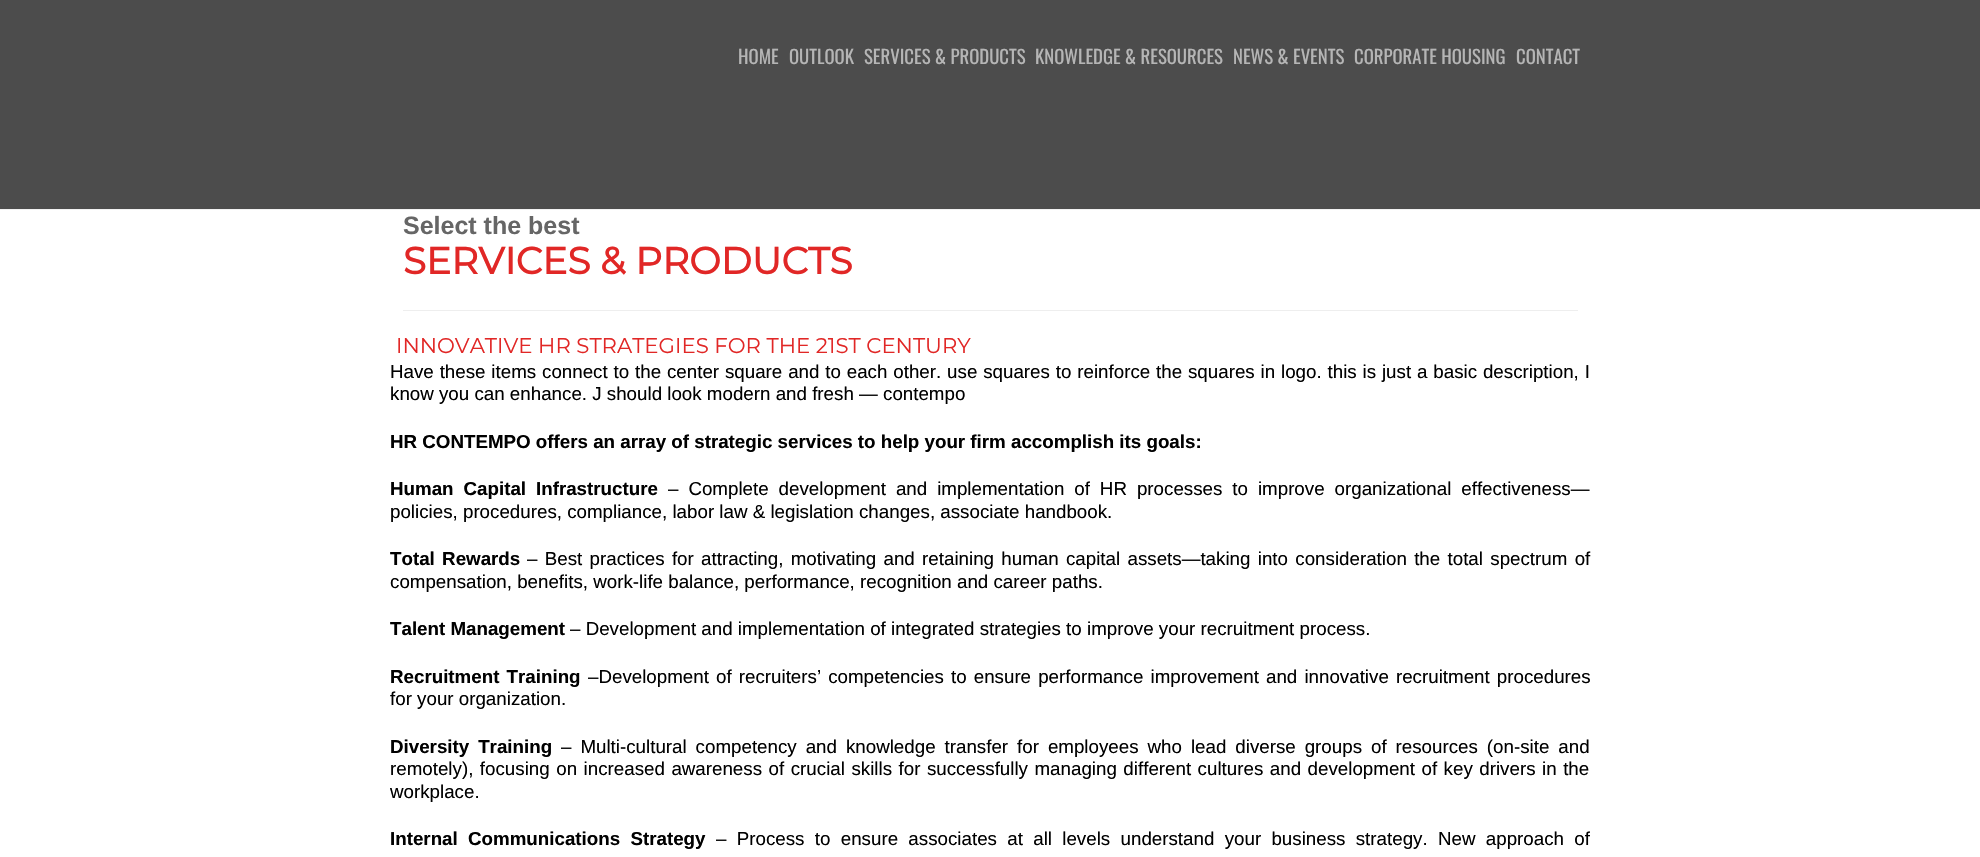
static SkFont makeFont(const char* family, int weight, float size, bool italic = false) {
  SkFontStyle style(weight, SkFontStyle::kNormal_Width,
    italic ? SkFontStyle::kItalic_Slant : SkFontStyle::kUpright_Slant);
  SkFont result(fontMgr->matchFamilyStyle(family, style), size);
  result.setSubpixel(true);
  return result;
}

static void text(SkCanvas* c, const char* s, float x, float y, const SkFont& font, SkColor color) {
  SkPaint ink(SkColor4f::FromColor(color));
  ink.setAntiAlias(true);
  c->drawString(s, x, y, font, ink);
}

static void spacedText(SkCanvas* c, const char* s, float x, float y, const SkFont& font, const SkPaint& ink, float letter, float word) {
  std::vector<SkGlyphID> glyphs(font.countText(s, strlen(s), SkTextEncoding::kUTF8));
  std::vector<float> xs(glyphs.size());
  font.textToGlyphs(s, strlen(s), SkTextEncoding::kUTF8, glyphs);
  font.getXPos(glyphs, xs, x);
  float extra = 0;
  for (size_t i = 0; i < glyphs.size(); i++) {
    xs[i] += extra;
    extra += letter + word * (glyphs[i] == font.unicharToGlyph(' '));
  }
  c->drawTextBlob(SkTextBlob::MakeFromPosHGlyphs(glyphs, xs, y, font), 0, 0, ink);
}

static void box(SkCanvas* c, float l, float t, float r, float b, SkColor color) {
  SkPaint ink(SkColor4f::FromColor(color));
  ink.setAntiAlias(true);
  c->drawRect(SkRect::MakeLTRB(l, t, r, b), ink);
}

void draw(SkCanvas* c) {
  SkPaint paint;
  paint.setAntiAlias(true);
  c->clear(0xffffffff);
  box(c, 0, 0, 1980, 209, 0xff4c4c4c);
  box(c, 0, 209, 1980, 210, 0xfff2f2f2);
  SkFont face1 = makeFont("Oswald", 400, 18.75f);
  text(c, "HOME", 738, 64, face1, 0xffb5b5b5);
  text(c, "OUTLOOK", 789, 64, face1, 0xffb5b5b5);
  text(c, "SERVICES & PRODUCTS", 864, 64, face1, 0xffb5b5b5);
  text(c, "KNOWLEDGE & RESOURCES", 1035, 64, face1, 0xffb5b5b5);
  text(c, "NEWS & EVENTS", 1233, 64, face1, 0xffb5b5b5);
  text(c, "CORPORATE HOUSING", 1354, 64, face1, 0xffb5b5b5);
  text(c, "CONTACT", 1516, 64, face1, 0xffb5b5b5);
  box(c, 403, 310, 1578, 311, 0xffeeeeee);
  SkFont face2 = makeFont("Liberation Sans", 700, 25);
  text(c, "Select the best", 403, 234, face2, 0xff666666);
  SkFont face3 = makeFont("Montserrat", 700, 37.5f);
  text(c, "SERVICES & PRODUCTS", 403, 274, face3, 0xffe12726);
  SkFont face4 = makeFont("Montserrat", 100, 21.25f);
  text(c, "INNOVATIVE HR STRATEGIES FOR THE 21ST CENTURY", 396, 353, face4, 0xffe12726);
  SkFont face5 = makeFont("Liberation Sans", 400, 18.75f);
  paint.setColor(0xff000000);
  spacedText(c, "Have these items connect to the center square and to each other. use squares to reinforce the squares in logo. this is just a basic description, I", 390, 378, face5, paint, 0, 0.65f);
  text(c, "know you can enhance. J should look modern and fresh — contempo", 390, 400, face5, 0xff000000);
  SkFont face6 = makeFont("Liberation Sans", 700, 18.75f);
  text(c, "HR CONTEMPO offers an array of strategic services to help your firm accomplish its goals:", 390, 448, face6, 0xff000000);
  spacedText(c, "Human Capital Infrastructure", 390, 495, face6, paint, 0, 4.75f);
  spacedText(c, "– Complete development and implementation of HR processes to improve organizational effectiveness—", 668, 495, face5, paint, 0, 4.75f);
  text(c, "policies, procedures, compliance, labor law & legislation changes, associate handbook.", 390, 518, face5, 0xff000000);
  spacedText(c, "Total Rewards", 390, 565, face6, paint, 0, 2.1f);
  spacedText(c, "– Best practices for attracting, motivating and retaining human capital assets—taking into consideration the total spectrum of", 527, 565, face5, paint, 0, 2.1f);
  text(c, "compensation, benefits, work-life balance, performance, recognition and career paths.", 390, 588, face5, 0xff000000);
  text(c, "Talent Management", 390, 635, face6, 0xff000000);
  text(c, "– Development and implementation of integrated strategies to improve your recruitment process.", 570, 635, face5, 0xff000000);
  spacedText(c, "Recruitment Training", 390, 683, face6, paint, 0, 2);
  spacedText(c, "–Development of recruiters’ competencies to ensure performance improvement and innovative recruitment procedures", 588, 683, face5, paint, 0, 1.9f);
  text(c, "for your organization.", 390, 705, face5, 0xff000000);
  spacedText(c, "Diversity Training", 390, 753, face6, paint, 0, 3.75f);
  spacedText(c, "– Multi-cultural competency and knowledge transfer for employees who lead diverse groups of resources (on-site and", 561, 753, face5, paint, 0, 3.75f);
  spacedText(c, "remotely), focusing on increased awareness of crucial skills for successfully managing different cultures and development of key drivers in the", 390, 775, face5, paint, 0, 1.3f);
  text(c, "workplace.", 390, 798, face5, 0xff000000);
  spacedText(c, "Internal Communications Strategy", 390, 845, face6, paint, 0, 5.1f);
  spacedText(c, "– Process to ensure associates at all levels understand your business strategy. New approach of", 716, 845, face5, paint, 0, 5.1f);
}
